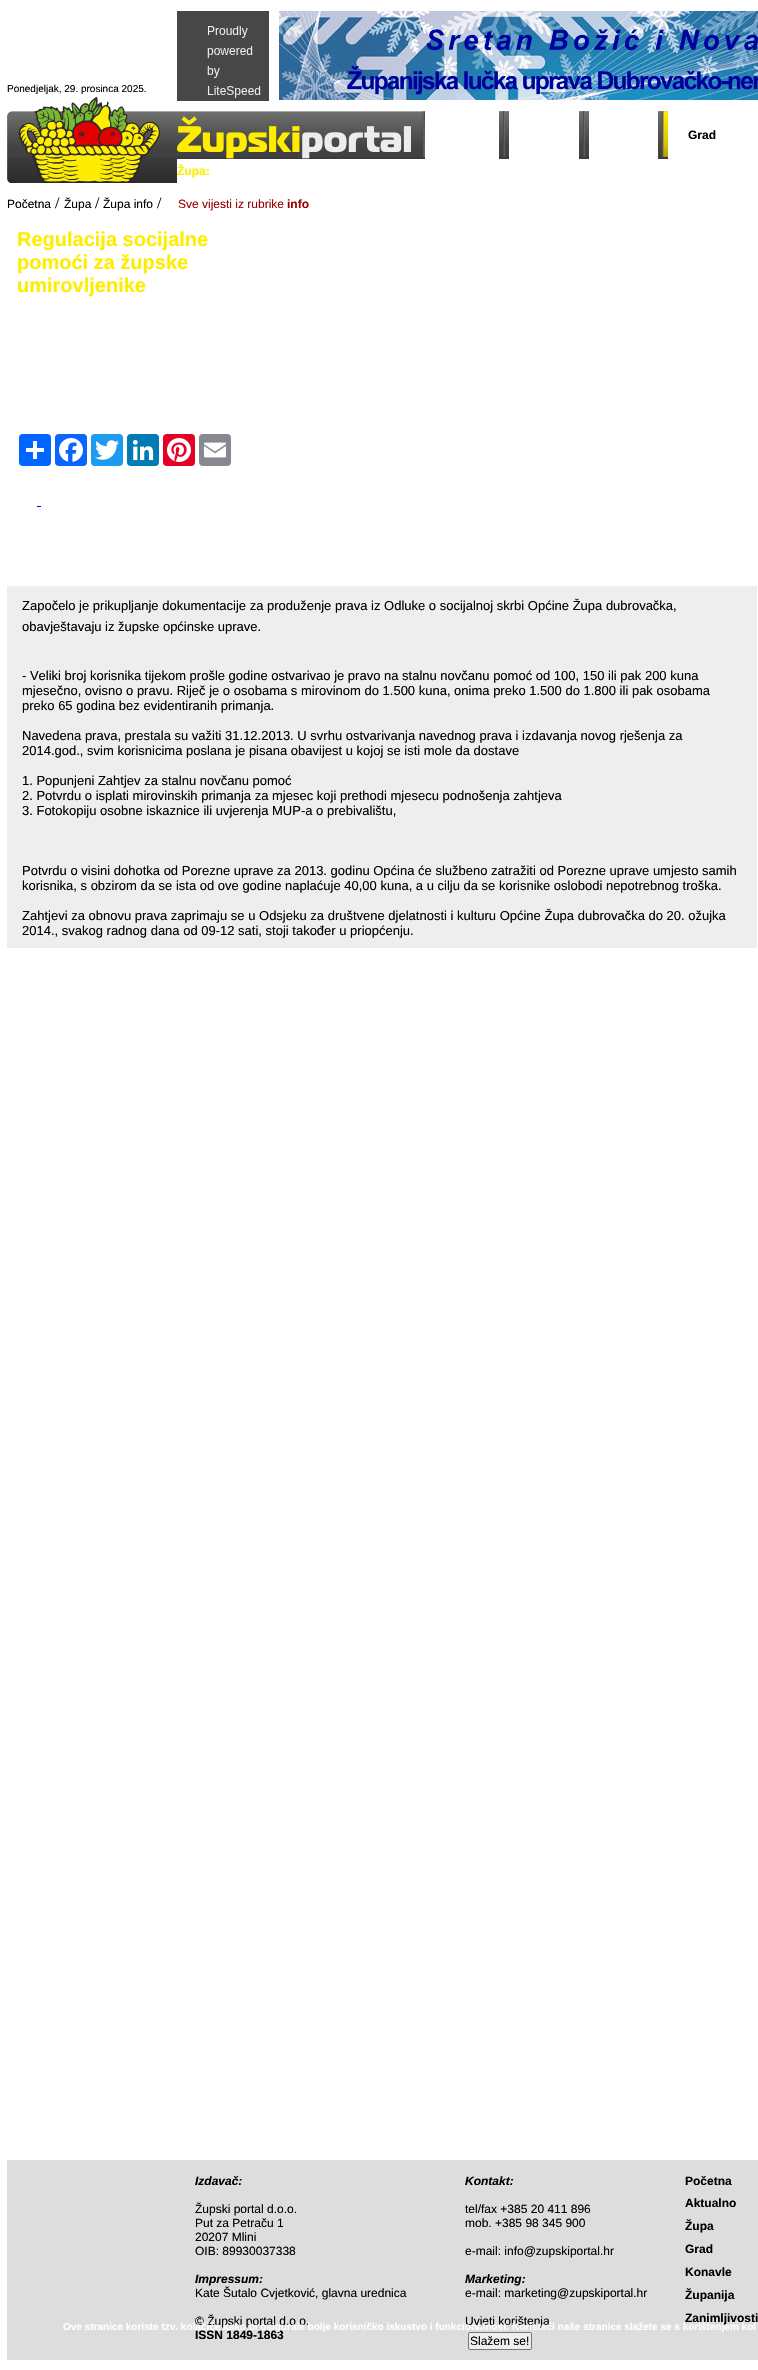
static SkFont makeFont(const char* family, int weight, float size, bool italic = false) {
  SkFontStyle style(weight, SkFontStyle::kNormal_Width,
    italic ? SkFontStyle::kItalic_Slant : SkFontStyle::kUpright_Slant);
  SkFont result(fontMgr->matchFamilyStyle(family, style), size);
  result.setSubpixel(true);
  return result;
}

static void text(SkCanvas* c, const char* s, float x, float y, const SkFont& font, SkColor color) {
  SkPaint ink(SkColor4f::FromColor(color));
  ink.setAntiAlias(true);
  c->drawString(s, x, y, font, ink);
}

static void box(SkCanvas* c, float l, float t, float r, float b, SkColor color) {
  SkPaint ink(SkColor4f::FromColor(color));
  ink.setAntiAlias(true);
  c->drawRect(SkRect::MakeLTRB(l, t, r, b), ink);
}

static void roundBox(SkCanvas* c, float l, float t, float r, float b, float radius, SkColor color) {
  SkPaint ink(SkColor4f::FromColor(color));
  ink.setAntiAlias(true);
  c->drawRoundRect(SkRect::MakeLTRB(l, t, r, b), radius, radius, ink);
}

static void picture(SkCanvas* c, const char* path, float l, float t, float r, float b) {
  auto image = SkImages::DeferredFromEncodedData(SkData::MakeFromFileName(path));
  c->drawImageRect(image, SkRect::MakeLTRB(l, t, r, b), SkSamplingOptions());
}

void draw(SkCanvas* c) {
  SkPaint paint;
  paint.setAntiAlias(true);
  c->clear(0xffffffff);
  SkFont face1 = makeFont("Liberation Sans", 400, 10);
  text(c, "Ponedjeljak, 29. prosinca 2025.", 7, 92, face1, 0xff000000);
  picture(c, "img_01.png", 7, 97, 177, 183);
  picture(c, "img_02.png", 177, 11, 269, 101);
  picture(c, "img_03.png", 279, 11, 758, 100);
  picture(c, "img_04.png", 177, 111, 425, 159);
  picture(c, "img_05.png", 499, 111, 509, 159);
  picture(c, "img_05.png", 579, 111, 589, 159);
  picture(c, "img_06.png", 658, 111, 668, 159);
  SkFont face2 = makeFont("Liberation Sans", 700, 12);
  text(c, "Grad", 688, 139, face2, 0xff000000);
  text(c, "Župa:", 177, 175, face2, 0xfffeed00);
  SkFont face3 = makeFont("Liberation Sans", 400, 12);
  text(c, "Početna", 7, 208, face3, 0xff000000);
  SkFont face4 = makeFont("Liberation Serif", 400, 16);
  text(c, "/", 55, 208, face4, 0xff000000);
  text(c, "Župa", 64, 208, face3, 0xff000000);
  text(c, "/", 95, 208, face4, 0xff000000);
  text(c, "Župa info", 103, 208, face3, 0xff000000);
  text(c, "/", 157, 208, face4, 0xff000000);
  text(c, "Sve vijesti iz rubrike", 178, 208, face3, 0xff990000);
  text(c, "info", 287, 208, face2, 0xff990000);
  SkFont face5 = makeFont("Liberation Sans", 700, 20);
  text(c, "Regulacija socijalne", 17, 246, face5, 0xfffeed00);
  text(c, "pomoći za župske", 17, 269, face5, 0xfffeed00);
  text(c, "umirovljenike", 17, 292, face5, 0xfffeed00);
  roundBox(c, 19, 434, 51, 466, 4, 0xff0166ff);
  box(c, 33, 441, 37, 459, 0xffffffff);
  box(c, 26, 448, 44, 452, 0xffffffff);
  roundBox(c, 55, 434, 87, 466, 4, 0xff0866ff);
  picture(c, "img_07.png", 59, 438, 83, 462);
  roundBox(c, 91, 434, 123, 466, 4, 0xff1d9bf0);
  picture(c, "img_08.png", 95, 440, 119, 460);
  roundBox(c, 127, 434, 159, 466, 4, 0xff007bb5);
  picture(c, "img_09.png", 132, 439, 154, 461);
  roundBox(c, 163, 434, 195, 466, 4, 0xffe60023);
  picture(c, "img_10.png", 167, 438, 191, 462);
  roundBox(c, 199, 434, 231, 466, 4, 0xff888990);
  picture(c, "img_11.png", 204, 442, 226, 458);
  box(c, 37, 506, 41, 507, 0xff0000ee);
  box(c, 7, 586, 757, 948, 0xffeeeeee);
  SkFont face6 = makeFont("Liberation Sans", 400, 13);
  text(c, "Započelo je prikupljanje dokumentacije za produženje prava iz Odluke o socijalnoj skrbi Općine Župa dubrovačka,", 22, 610, face6, 0xff000000);
  text(c, "obavještavaju iz župske općinske uprave.", 22, 631, face6, 0xff000000);
  text(c, "- Veliki broj korisnika tijekom prošle godine ostvarivao je pravo na stalnu novčanu pomoć od 100, 150 ili pak 200 kuna", 22, 680, face6, 0xff000000);
  text(c, "mjesečno, ovisno o pravu. Riječ je o osobama s mirovinom do 1.500 kuna, onima preko 1.500 do 1.800 ili pak osobama", 22, 695, face6, 0xff000000);
  text(c, "preko 65 godina bez evidentiranih primanja.", 22, 710, face6, 0xff000000);
  text(c, "Navedena prava, prestala su važiti 31.12.2013. U svrhu ostvarivanja navednog prava i izdavanja novog rješenja za", 22, 740, face6, 0xff000000);
  text(c, "2014.god., svim korisnicima poslana je pisana obavijest u kojoj se isti mole da dostave", 22, 755, face6, 0xff000000);
  text(c, "1. Popunjeni Zahtjev za stalnu novčanu pomoć", 22, 785, face6, 0xff000000);
  text(c, "2. Potvrdu o isplati mirovinskih primanja za mjesec koji prethodi mjesecu podnošenja zahtjeva", 22, 800, face6, 0xff000000);
  text(c, "3. Fotokopiju osobne iskaznice ili uvjerenja MUP-a o prebivalištu,", 22, 815, face6, 0xff000000);
  text(c, "Potvrdu o visini dohotka od Porezne uprave za 2013. godinu Općina će službeno zatražiti od Porezne uprave umjesto samih", 22, 875, face6, 0xff000000);
  text(c, "korisnika, s obzirom da se ista od ove godine naplaćuje 40,00 kuna, a u cilju da se korisnike oslobodi nepotrebnog troška.", 22, 890, face6, 0xff000000);
  text(c, "Zahtjevi za obnovu prava zaprimaju se u Odsjeku za društvene djelatnosti i kulturu Općine Župa dubrovačka do 20. ožujka", 22, 920, face6, 0xff000000);
  text(c, "2014., svakog radnog dana od 09-12 sati, stoji također u priopćenju.", 22, 935, face6, 0xff000000);
  box(c, 7, 2160, 758, 2360, 0xffdddddd);
  SkFont face7 = makeFont("Liberation Sans", 700, 12, true);
  text(c, "Izdavač:", 195, 2185, face7, 0xff000000);
  text(c, "Župski portal d.o.o.", 195, 2213, face3, 0xff000000);
  text(c, "Put za Petraču 1", 195, 2227, face3, 0xff000000);
  text(c, "20207 Mlini", 195, 2241, face3, 0xff000000);
  text(c, "OIB: 89930037338", 195, 2255, face3, 0xff000000);
  text(c, "Impressum:", 195, 2283, face7, 0xff000000);
  text(c, "Kate Šutalo Cvjetković, glavna urednica", 195, 2297, face3, 0xff000000);
  text(c, "© Župski portal d.o.o.", 195, 2325, face3, 0xff000000);
  text(c, "ISSN 1849-1863", 195, 2339, face2, 0xff000000);
  text(c, "Kontakt:", 465, 2185, face7, 0xff000000);
  text(c, "tel/fax +385 20 411 896", 465, 2213, face3, 0xff000000);
  text(c, "mob. +385 98 345 900", 465, 2227, face3, 0xff000000);
  text(c, "e-mail: info@zupskiportal.hr", 465, 2255, face3, 0xff000000);
  text(c, "Marketing:", 465, 2283, face7, 0xff000000);
  text(c, "e-mail: marketing@zupskiportal.hr", 465, 2297, face3, 0xff000000);
  text(c, "Uvjeti korištenja", 465, 2325, face3, 0xff000000);
  text(c, "Početna", 685, 2185, face2, 0xff000000);
  text(c, "Aktualno", 685, 2207, face2, 0xff000000);
  text(c, "Župa", 685, 2230, face2, 0xff000000);
  text(c, "Grad", 685, 2253, face2, 0xff000000);
  text(c, "Konavle", 685, 2276, face2, 0xff000000);
  text(c, "Županija", 685, 2299, face2, 0xff000000);
  text(c, "Zanimljivosti", 685, 2322, face2, 0xff000000);
  SkFont face8 = makeFont("Liberation Sans", 700, 10);
  text(c, "Ove stranice koriste tzv. kolačiće kako bi osigurale bolje korisničko iskustvo i funkcionalnost. Koristeći naše stranice slažete se s korištenjem kol", 63, 2330, face8, 0xffffffff);
  paint.setColor(0xffefefef);
  c->drawRoundRect(SkRect::MakeLTRB(468.5f, 2332.5f, 531.5f, 2349.5f), 1.5f, 1.5f, paint);
  paint.setStyle(SkPaint::kStroke_Style);
  paint.setStrokeWidth(1);
  paint.setColor(0xff767676);
  c->drawRoundRect(SkRect::MakeLTRB(468.5f, 2332.5f, 531.5f, 2349.5f), 1.5f, 1.5f, paint);
  text(c, "Slažem se!", 470, 2345, face3, 0xff000000);
}
